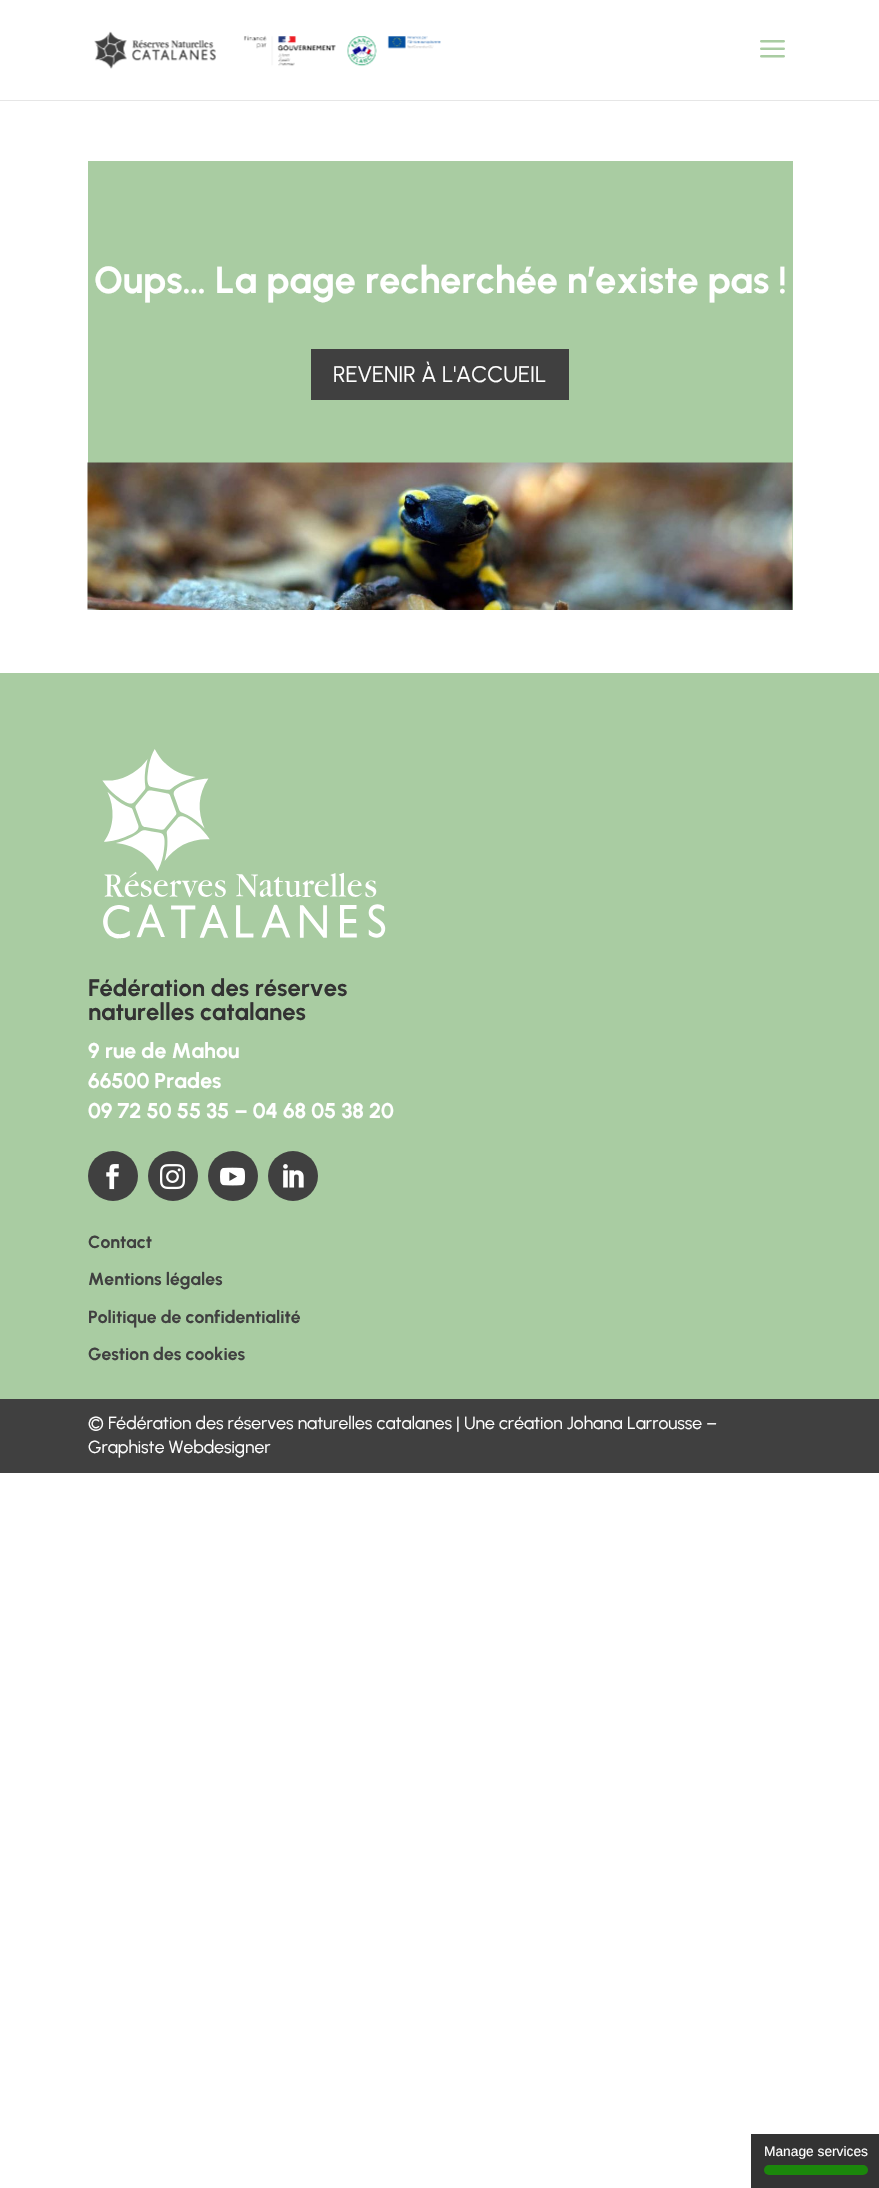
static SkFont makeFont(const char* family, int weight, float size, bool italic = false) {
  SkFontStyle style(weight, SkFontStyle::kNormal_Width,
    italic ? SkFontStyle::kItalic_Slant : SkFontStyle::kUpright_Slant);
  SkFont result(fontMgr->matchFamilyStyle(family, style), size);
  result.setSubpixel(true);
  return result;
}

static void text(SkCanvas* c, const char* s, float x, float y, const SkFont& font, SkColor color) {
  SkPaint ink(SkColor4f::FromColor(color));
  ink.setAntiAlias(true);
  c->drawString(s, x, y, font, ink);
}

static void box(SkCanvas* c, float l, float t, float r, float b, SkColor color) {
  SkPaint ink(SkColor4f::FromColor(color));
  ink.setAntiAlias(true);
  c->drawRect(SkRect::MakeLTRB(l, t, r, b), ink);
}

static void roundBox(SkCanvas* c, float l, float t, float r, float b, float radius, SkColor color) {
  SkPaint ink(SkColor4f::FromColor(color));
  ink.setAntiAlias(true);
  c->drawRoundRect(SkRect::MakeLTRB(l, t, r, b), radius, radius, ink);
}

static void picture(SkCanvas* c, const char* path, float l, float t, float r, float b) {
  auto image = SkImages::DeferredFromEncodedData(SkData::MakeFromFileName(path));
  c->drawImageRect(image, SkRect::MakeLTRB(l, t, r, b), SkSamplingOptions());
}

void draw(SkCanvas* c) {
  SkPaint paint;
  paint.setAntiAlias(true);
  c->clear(0xffffffff);
  box(c, 0, 100, 879, 101, 0xffe6e6e6);
  picture(c, "img_01.png", 94, 31, 441, 69);
  picture(c, "img_02.png", 760, 40, 785, 58);
  box(c, 88, 161, 793, 610, 0xffa9cca2);
  SkFont face1 = makeFont("Urbanist", 700, 37.5f);
  text(c, "Oups… La page recherchée n’existe pas !", 94, 293, face1, 0xffffffff);
  box(c, 311, 349, 569, 400, 0xff404040);
  SkFont face2 = makeFont("Urbanist", 400, 22.5f);
  text(c, "REVENIR À L'ACCUEIL", 333, 382, face2, 0xffffffff);
  picture(c, "img_03.png", 87, 462, 793, 610);
  box(c, 0, 673, 879, 1399, 0xffa9cca2);
  picture(c, "img_04.png", 102, 749, 386, 939);
  SkFont face3 = makeFont("Urbanist", 700, 23.75f);
  text(c, "Fédération des réserves", 88, 996, face3, 0xff333333);
  text(c, "naturelles catalanes", 88, 1020, face3, 0xff333333);
  SkFont face4 = makeFont("Urbanist", 700, 21.25f);
  text(c, "9 rue de Mahou", 88, 1058, face4, 0xffffffff);
  text(c, "66500 Prades", 88, 1088, face4, 0xffffffff);
  text(c, "09 72 50 55 35 – 04 68 05 38 20", 88, 1118, face4, 0xffffffff);
  paint.setColor(0xff404040);
  c->drawCircle(113, 1176, 25, paint);
  picture(c, "img_05.png", 106, 1164, 119, 1190);
  c->drawCircle(173, 1176, 25, paint);
  picture(c, "img_06.png", 160, 1164, 185, 1190);
  c->drawCircle(233, 1176, 25, paint);
  picture(c, "img_07.png", 220, 1167, 245, 1186);
  c->drawCircle(293, 1176, 25, paint);
  picture(c, "img_08.png", 283, 1164, 304, 1188);
  SkFont face5 = makeFont("Urbanist", 700, 17.5f);
  text(c, "Contact", 88, 1248, face5, 0xff404040);
  text(c, "Mentions légales", 88, 1285, face5, 0xff404040);
  text(c, "Politique de confidentialité", 88, 1323, face5, 0xff404040);
  text(c, "Gestion des cookies", 88, 1360, face5, 0xff404040);
  box(c, 0, 1399, 879, 1473, 0xff404040);
  SkFont face6 = makeFont("Urbanist", 400, 17.5f);
  text(c, "© Fédération des réserves naturelles catalanes | Une création Johana Larrousse –", 88, 1429, face6, 0xffffffff);
  text(c, "Graphiste Webdesigner", 88, 1453, face6, 0xffffffff);
  box(c, 751, 2134, 879, 2188, 0xff333333);
  SkFont face7 = makeFont("Liberation Sans", 400, 13.75f);
  text(c, "Manage services", 764, 2156, face7, 0xffffffff);
  roundBox(c, 764, 2165, 868, 2175, 5, 0xff1b870b);
}
